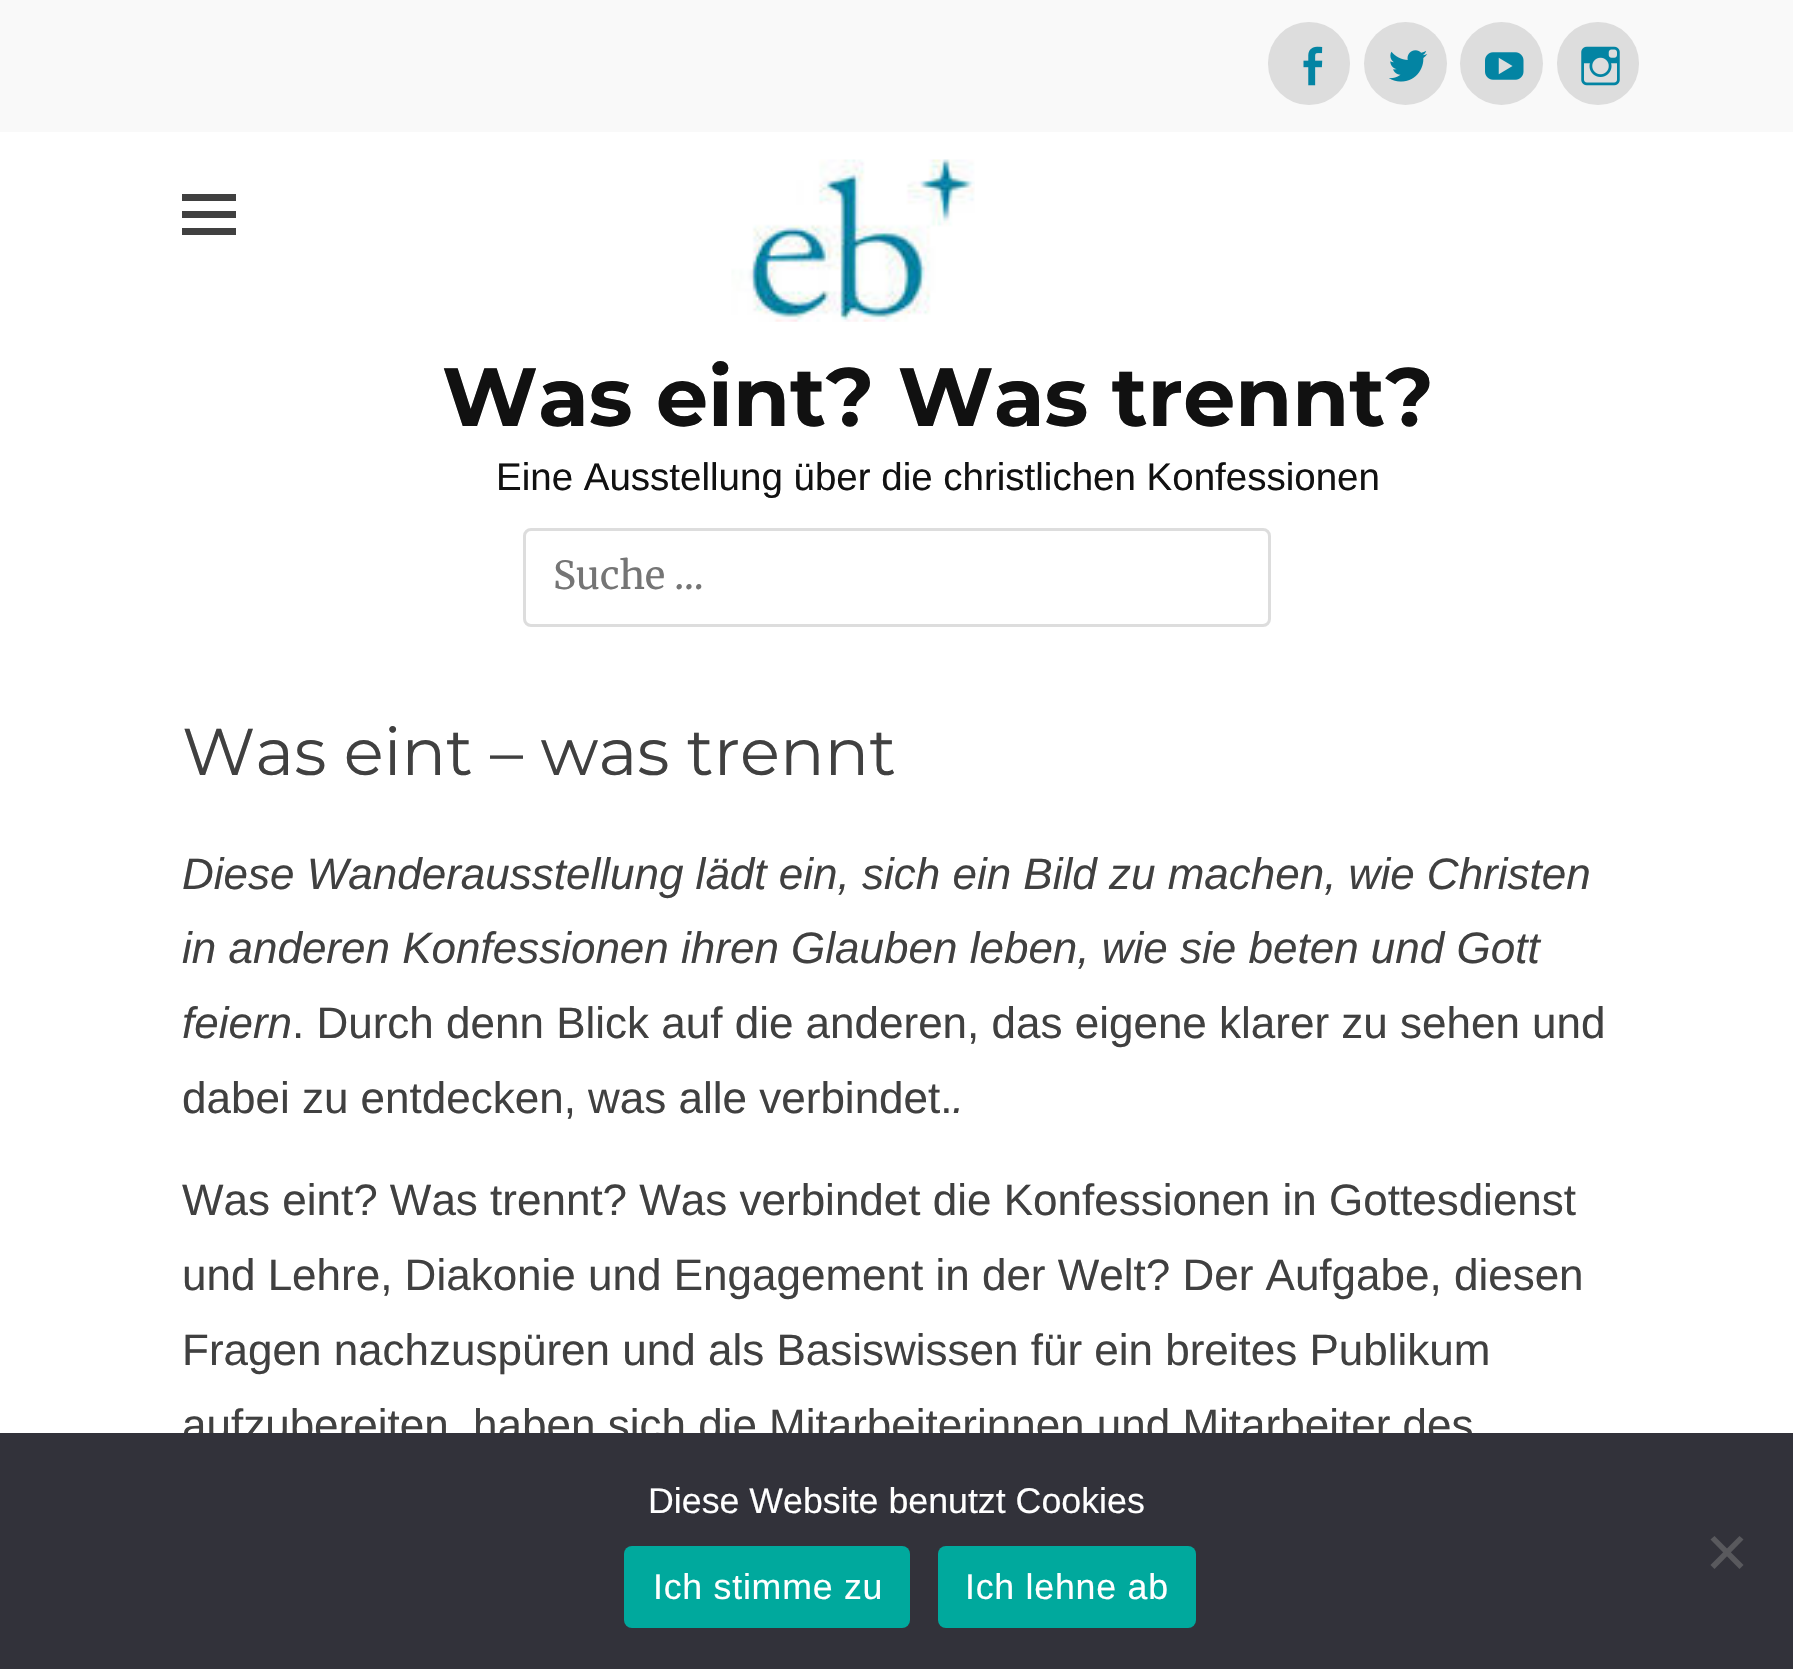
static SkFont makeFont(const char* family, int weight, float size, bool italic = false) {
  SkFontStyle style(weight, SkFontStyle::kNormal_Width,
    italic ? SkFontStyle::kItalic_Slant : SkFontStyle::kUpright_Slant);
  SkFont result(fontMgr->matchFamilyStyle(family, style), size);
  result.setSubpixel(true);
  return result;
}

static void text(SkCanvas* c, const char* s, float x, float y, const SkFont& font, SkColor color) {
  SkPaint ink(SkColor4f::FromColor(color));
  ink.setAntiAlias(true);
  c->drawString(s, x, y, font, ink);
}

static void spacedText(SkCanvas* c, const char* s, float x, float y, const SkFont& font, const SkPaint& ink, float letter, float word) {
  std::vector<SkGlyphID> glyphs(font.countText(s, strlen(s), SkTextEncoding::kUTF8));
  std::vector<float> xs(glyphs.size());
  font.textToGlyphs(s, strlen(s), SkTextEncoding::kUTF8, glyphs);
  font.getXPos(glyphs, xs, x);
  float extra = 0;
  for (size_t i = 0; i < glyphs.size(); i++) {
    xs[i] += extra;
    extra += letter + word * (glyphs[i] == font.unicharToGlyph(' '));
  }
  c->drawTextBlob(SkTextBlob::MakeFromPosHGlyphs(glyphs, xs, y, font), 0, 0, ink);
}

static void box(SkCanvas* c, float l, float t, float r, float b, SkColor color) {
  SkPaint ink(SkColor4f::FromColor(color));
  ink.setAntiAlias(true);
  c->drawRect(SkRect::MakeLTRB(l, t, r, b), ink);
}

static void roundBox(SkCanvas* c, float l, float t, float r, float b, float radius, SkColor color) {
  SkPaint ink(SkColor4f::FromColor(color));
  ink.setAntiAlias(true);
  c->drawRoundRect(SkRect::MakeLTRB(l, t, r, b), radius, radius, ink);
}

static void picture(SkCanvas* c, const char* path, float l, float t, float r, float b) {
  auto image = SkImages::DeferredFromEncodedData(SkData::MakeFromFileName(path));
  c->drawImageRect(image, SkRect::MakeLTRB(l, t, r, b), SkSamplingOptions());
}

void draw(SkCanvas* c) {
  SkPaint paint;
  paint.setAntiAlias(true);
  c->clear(0xfff9f9f9);
  roundBox(c, 1268, 22, 1350, 105, 41, 0xffdddddd);
  picture(c, "img_01.png", 1303, 46, 1323, 86);
  paint.setColor(0xffdddddd);
  c->drawCircle(1405.5f, 63.5f, 41.5f, paint);
  picture(c, "img_02.png", 1389, 50, 1428, 82);
  c->drawCircle(1501.5f, 63.5f, 41.5f, paint);
  picture(c, "img_03.png", 1485, 52, 1524, 80);
  roundBox(c, 1557, 22, 1639, 105, 41, 0xffdddddd);
  picture(c, "img_04.png", 1581, 46, 1620, 86);
  box(c, 0, 132, 1793, 1433, 0xffffffff);
  paint.setColor(0xff404040);
  c->drawPath(SkPathBuilder().moveTo(182, 235).lineTo(182, 228).lineTo(236, 228).lineTo(236, 235).close().moveTo(182, 194).lineTo(236, 194).lineTo(236, 201).lineTo(182, 201).close().moveTo(182, 218).lineTo(182, 211).lineTo(236, 211).lineTo(236, 218).close().detach(), paint);
  picture(c, "img_05.png", 731, 159, 975, 322);
  SkFont face1 = makeFont("Montserrat", 700, 82.5f);
  text(c, "Was eint? Was trennt?", 442, 426, face1, 0xff111111);
  SkFont face2 = makeFont("Liberation Sans", 400, 38.5f);
  text(c, "Eine Ausstellung über die christlichen Konfessionen", 496, 490, face2, 0xff111111);
  paint.setStyle(SkPaint::kStroke_Style);
  paint.setStrokeWidth(3);
  paint.setColor(0xffdddddd);
  c->drawRoundRect(SkRect::MakeLTRB(524.5f, 529.5f, 1269.5f, 625.5f), 6.5f, 6.5f, paint);
  SkFont face3 = makeFont("Merriweather", 400, 38.5f);
  text(c, "Suche ...", 553, 589, face3, 0xff757575);
  SkFont face4 = makeFont("Montserrat", 400, 66);
  text(c, "Was eint – was trennt", 182, 775, face4, 0xff404040);
  SkFont face5 = makeFont("Liberation Sans", 400, 44, true);
  text(c, "Diese Wanderausstellung lädt ein, sich ein Bild zu machen, wie Christen", 182, 889, face5, 0xff404040);
  text(c, "in anderen Konfessionen ihren Glauben leben, wie sie beten und Gott", 182, 963, face5, 0xff404040);
  text(c, "feiern", 182, 1038, face5, 0xff404040);
  SkFont face6 = makeFont("Liberation Sans", 400, 44);
  text(c, ". Durch denn Blick auf die anderen, das eigene klarer zu sehen und", 292, 1038, face6, 0xff404040);
  text(c, "dabei zu entdecken, was alle verbindet.", 182, 1113, face6, 0xff404040);
  text(c, ".", 952, 1113, face5, 0xff404040);
  text(c, "Was eint? Was trennt? Was verbindet die Konfessionen in Gottesdienst", 182, 1215, face6, 0xff404040);
  text(c, "und Lehre, Diakonie und Engagement in der Welt? Der Aufgabe, diesen", 182, 1290, face6, 0xff404040);
  text(c, "Fragen nachzuspüren und als Basiswissen für ein breites Publikum", 182, 1365, face6, 0xff404040);
  text(c, "aufzubereiten, haben sich die Mitarbeiterinnen und Mitarbeiter des", 182, 1440, face6, 0xff404040);
  box(c, 0, 1433, 1793, 1669, 0xff32323a);
  SkFont face7 = makeFont("Liberation Sans", 400, 35.75f);
  text(c, "Diese Website benutzt Cookies", 648, 1513, face7, 0xffffffff);
  paint.setStyle(SkPaint::kFill_Style);
  paint.setColor(0xff59595d);
  c->drawPath(SkPathBuilder().moveTo(1739.5f, 1536).lineTo(1743.5f, 1539.5f).lineTo(1714.5f, 1569).lineTo(1710.5f, 1565).close().detach(), paint);
  c->drawPath(SkPathBuilder().moveTo(1710.5f, 1539.5f).lineTo(1714.5f, 1536).lineTo(1743.5f, 1565).lineTo(1739.5f, 1569).close().detach(), paint);
  roundBox(c, 624, 1546, 910, 1628, 8, 0xff00a99d);
  paint.setColor(0xffffffff);
  spacedText(c, "Ich stimme zu", 653, 1599, face7, paint, 0.75f, 0);
  roundBox(c, 938, 1546, 1196, 1628, 8, 0xff00a99d);
  spacedText(c, "Ich lehne ab", 965, 1599, face7, paint, 0.75f, 0);
}
